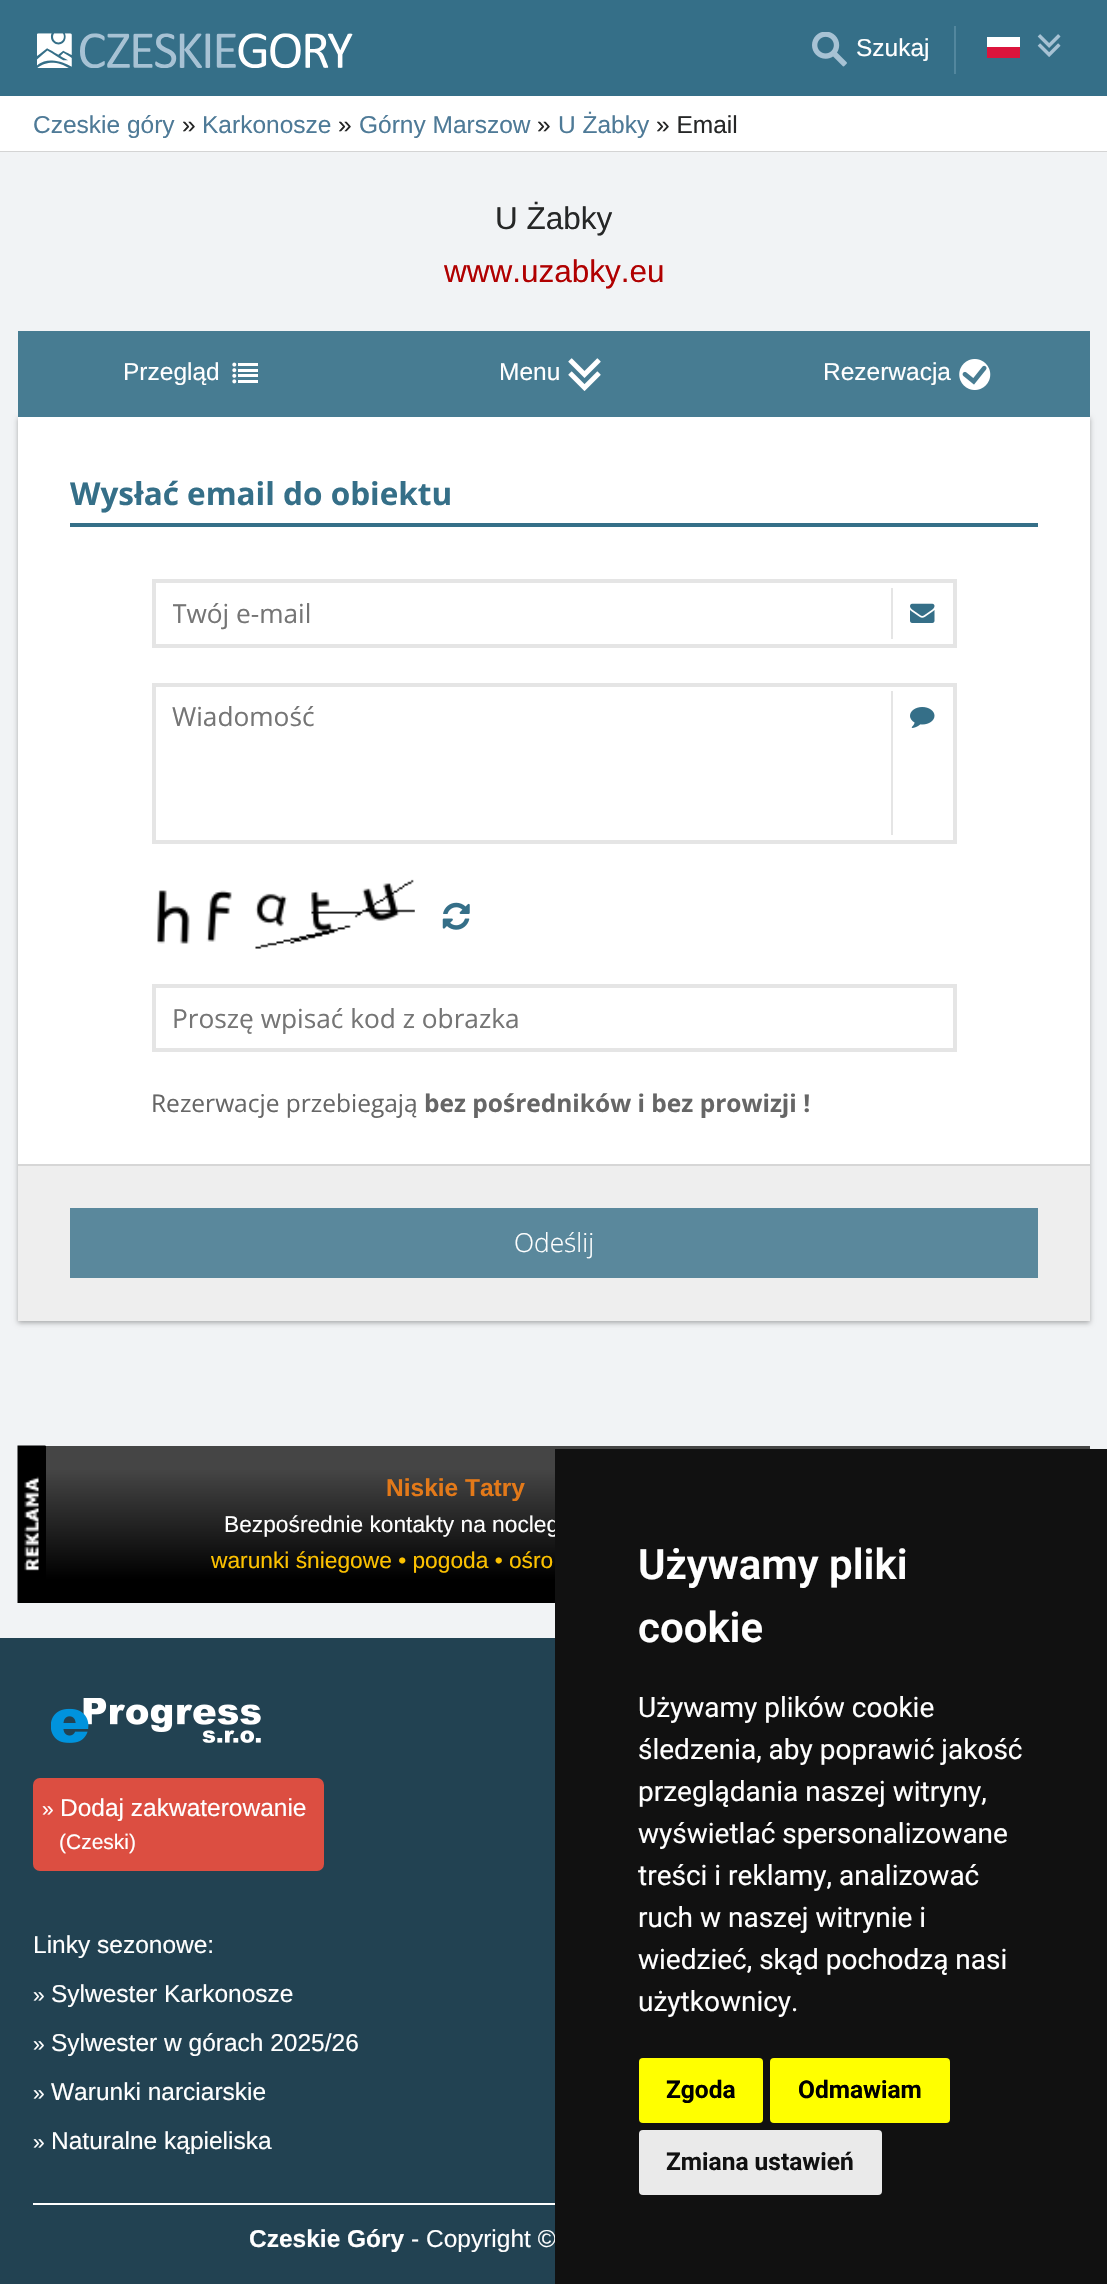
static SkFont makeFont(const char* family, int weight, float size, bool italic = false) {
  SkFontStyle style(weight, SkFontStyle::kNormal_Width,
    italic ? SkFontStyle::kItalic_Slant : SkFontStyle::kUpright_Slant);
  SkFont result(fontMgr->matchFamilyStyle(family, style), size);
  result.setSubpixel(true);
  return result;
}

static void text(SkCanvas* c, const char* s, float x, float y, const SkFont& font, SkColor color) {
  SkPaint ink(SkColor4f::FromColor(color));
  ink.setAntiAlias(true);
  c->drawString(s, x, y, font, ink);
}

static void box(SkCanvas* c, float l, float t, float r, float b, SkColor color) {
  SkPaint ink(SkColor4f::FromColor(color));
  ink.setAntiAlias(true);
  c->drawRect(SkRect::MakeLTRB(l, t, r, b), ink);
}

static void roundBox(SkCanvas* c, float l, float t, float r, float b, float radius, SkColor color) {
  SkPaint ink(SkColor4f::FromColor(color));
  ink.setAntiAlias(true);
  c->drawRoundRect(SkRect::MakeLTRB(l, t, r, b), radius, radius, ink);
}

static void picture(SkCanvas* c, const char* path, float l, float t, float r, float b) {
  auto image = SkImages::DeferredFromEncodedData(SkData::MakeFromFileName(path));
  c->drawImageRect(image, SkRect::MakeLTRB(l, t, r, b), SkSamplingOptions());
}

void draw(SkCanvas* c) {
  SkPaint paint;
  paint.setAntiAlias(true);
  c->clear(0xfff1f3f5);
  box(c, 0, 0, 1107, 96, 0xff356f88);
  picture(c, "img_01.png", 37, 33, 353, 68);
  picture(c, "img_02.png", 812, 32, 847, 67);
  SkFont face1 = makeFont("Liberation Sans", 400, 24.5f);
  text(c, "Szukaj", 856, 56, face1, 0xffffffff);
  box(c, 954, 26, 956, 74, 0xff53879e);
  box(c, 987, 37, 1020, 47, 0xffffffff);
  picture(c, "img_03.png", 1037, 34, 1061, 57);
  box(c, 987, 47, 1020, 58, 0xffdc143c);
  box(c, 0, 96, 1107, 151, 0xffffffff);
  box(c, 0, 151, 1107, 152, 0xffd4d4d4);
  text(c, "Czeskie góry", 33, 133, face1, 0xff4e7a97);
  text(c, "»", 182, 133, face1, 0xff262727);
  text(c, "Karkonosze", 202, 133, face1, 0xff4e7a97);
  text(c, "»", 338, 133, face1, 0xff262727);
  text(c, "Górny Marszow", 359, 133, face1, 0xff4e7a97);
  text(c, "»", 537, 133, face1, 0xff262727);
  text(c, "U Żabky", 558, 133, face1, 0xff4e7a97);
  text(c, "» Email", 656, 133, face1, 0xff262727);
  SkFont face2 = makeFont("Liberation Sans", 400, 31.5f);
  text(c, "U Żabky", 495, 229, face2, 0xff262727);
  text(c, "www.uzabky.eu", 444, 282, face2, 0xffb00000);
  paint.setColor(0x4d000000);
  paint.setMaskFilter(SkMaskFilter::MakeBlur(kNormal_SkBlurStyle, 2.5f));
  c->drawRect(SkRect::MakeLTRB(18, 418, 1090, 1323), paint);
  paint.setMaskFilter(nullptr);
  box(c, 18, 331, 1090, 417, 0xff477c92);
  text(c, "Przegląd", 123, 380, face1, 0xffffffff);
  picture(c, "img_04.png", 232, 362, 258, 384);
  text(c, "Menu", 499, 380, face1, 0xffffffff);
  picture(c, "img_05.png", 568, 358, 601, 391);
  text(c, "Rezerwacja", 823, 380, face1, 0xffffffff);
  picture(c, "img_06.png", 959, 359, 991, 390);
  box(c, 18, 417, 1090, 1164, 0xffffffff);
  box(c, 70, 523, 1038, 527, 0xff356f88);
  SkFont face3 = makeFont("Open Sans", 700, 31.5f);
  text(c, "Wysłać email do obiektu", 70, 505, face3, 0xff356f88);
  paint.setStyle(SkPaint::kStroke_Style);
  paint.setStrokeWidth(4);
  paint.setColor(0xffe5e5e5);
  c->drawRect(SkRect::MakeLTRB(154, 581, 955, 646), paint);
  c->save();
  c->clipRect(SkRect::MakeLTRB(173, 595, 873, 630));
  SkFont face4 = makeFont("Open Sans", 400, 26.25f);
  text(c, "Twój e-mail", 172, 623, face4, 0xff757575);
  c->restore();
  box(c, 891, 588, 893, 639, 0xffe5e5e5);
  picture(c, "img_07.png", 910, 603, 935, 623);
  c->drawRect(SkRect::MakeLTRB(154, 685, 955, 842), paint);
  text(c, "Wiadomość", 172, 726, face4, 0xff757575);
  box(c, 891, 691, 893, 835, 0xffe5e5e5);
  picture(c, "img_08.png", 910, 707, 935, 728);
  picture(c, "img_09.png", 157, 879, 415, 949);
  picture(c, "img_10.png", 442, 902, 470, 930);
  c->drawRect(SkRect::MakeLTRB(154, 986, 955, 1050), paint);
  c->save();
  c->clipRect(SkRect::MakeLTRB(173, 999, 936, 1034));
  text(c, "Proszę wpisać kod z obrazka", 172, 1028, face4, 0xff757575);
  c->restore();
  SkFont face5 = makeFont("Open Sans", 400, 24.5f);
  text(c, "Rezerwacje przebiegają", 151, 1112, face5, 0xff666666);
  SkFont face6 = makeFont("Open Sans", 700, 24.5f);
  text(c, "bez pośredników i bez prowizji !", 424, 1112, face6, 0xff666666);
  box(c, 18, 1166, 1090, 1321, 0xffeeeeee);
  box(c, 18, 1164, 1090, 1166, 0xffd6d6d6);
  box(c, 70, 1208, 1038, 1278, 0xff5a889c);
  SkFont face7 = makeFont("Open Sans", 300, 26.25f);
  text(c, "Odeślij", 514, 1252, face7, 0xffffffff);
  paint.setStyle(SkPaint::kFill_Style);
  {
    const SkColor colors[] = {0xff454545, 0xff000000};
    const float stops[] = {0.15f, 0.85f};
    const SkPoint ends[] = {{554, 1446}, {554, 1603}};
    paint.setShader(SkGradientShader::MakeLinear(ends, colors, stops, 2, SkTileMode::kClamp));
    paint.setAlpha(255);
  }
  c->drawRect(SkRect::MakeLTRB(46, 1446, 1090, 1603), paint);
  box(c, 45, 1446, 46, 1603, 0xff000000);
  picture(c, "img_11.png", 17, 1445, 46, 1603);
  SkFont face8 = makeFont("Liberation Sans", 700, 24.5f);
  text(c, "Niskie Tatry", 386, 1496, face8, 0xffe37919);
  SkFont face9 = makeFont("Liberation Sans", 400, 22.75f);
  text(c, "Bezpośrednie kontakty na nocleg", 224, 1532, face9, 0xffffffff);
  text(c, "warunki śniegowe • pogoda • ośro", 211, 1568, face9, 0xfffcc100);
  box(c, 0, 1638, 555, 2284, 0xff224252);
  picture(c, "img_12.png", 51, 1698, 261, 1743);
  roundBox(c, 33, 1778, 324, 1871, 7, 0xffdc4e41);
  SkFont face10 = makeFont("Liberation Sans", 400, 21);
  text(c, "»", 42, 1816, face10, 0xffffffff);
  text(c, "Dodaj zakwaterowanie", 60, 1816, face1, 0xffffffff);
  text(c, "(Czeski)", 59, 1849, face10, 0xffffffff);
  text(c, "Linky sezonowe:", 33, 1953, face1, 0xffffffff);
  text(c, "»", 33, 2002, face10, 0xffffffff);
  text(c, "Sylwester Karkonosze", 51, 2002, face1, 0xffffffff);
  text(c, "»", 33, 2051, face10, 0xffffffff);
  text(c, "Sylwester w górach 2025/26", 51, 2051, face1, 0xffffffff);
  text(c, "»", 33, 2100, face10, 0xffffffff);
  text(c, "Warunki narciarskie", 51, 2100, face1, 0xffffffff);
  text(c, "»", 33, 2149, face10, 0xffffffff);
  text(c, "Naturalne kąpieliska", 51, 2149, face1, 0xffffffff);
  box(c, 33, 2203, 555, 2205, 0xffffffff);
  text(c, "Czeskie Góry", 249, 2247, face8, 0xffffffff);
  text(c, "- Copyright ©", 411, 2247, face1, 0xffffffff);
  box(c, 555, 1449, 1107, 2284, 0xff111111);
  SkFont face11 = makeFont("Roboto", 600, 42);
  text(c, "Używamy pliki", 638, 1579, face11, 0xffffffff);
  text(c, "cookie", 638, 1642, face11, 0xffffffff);
  SkFont face12 = makeFont("Roboto", 400, 28);
  text(c, "Używamy plików cookie", 638, 1717, face12, 0xffffffff);
  text(c, "śledzenia, aby poprawić jakość", 638, 1759, face12, 0xffffffff);
  text(c, "przeglądania naszej witryny,", 638, 1801, face12, 0xffffffff);
  text(c, "wyświetlać spersonalizowane", 638, 1843, face12, 0xffffffff);
  text(c, "treści i reklamy, analizować", 638, 1885, face12, 0xffffffff);
  text(c, "ruch w naszej witrynie i", 638, 1927, face12, 0xffffffff);
  text(c, "wiedzieć, skąd pochodzą nasi", 638, 1969, face12, 0xffffffff);
  text(c, "użytkownicy.", 638, 2011, face12, 0xffffffff);
  roundBox(c, 639, 2058, 763, 2123, 4, 0xffffff00);
  SkFont face13 = makeFont("Roboto", 700, 24.5f);
  text(c, "Zgoda", 666, 2098, face13, 0xff000000);
  roundBox(c, 770, 2058, 950, 2123, 4, 0xffffff00);
  text(c, "Odmawiam", 798, 2098, face13, 0xff000000);
  roundBox(c, 639, 2130, 882, 2195, 4, 0xffeaeaea);
  text(c, "Zmiana ustawień", 666, 2170, face13, 0xff111111);
}
